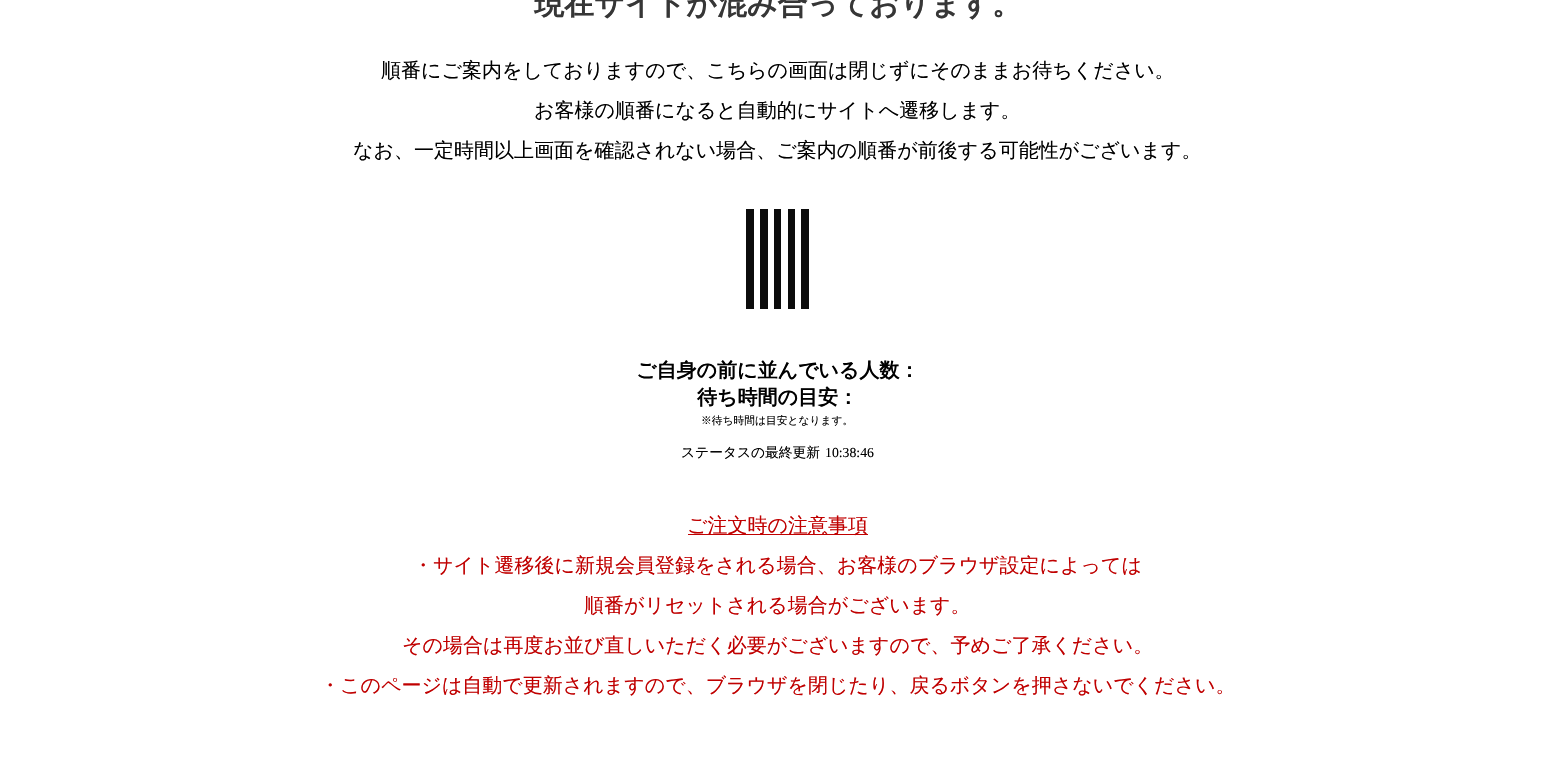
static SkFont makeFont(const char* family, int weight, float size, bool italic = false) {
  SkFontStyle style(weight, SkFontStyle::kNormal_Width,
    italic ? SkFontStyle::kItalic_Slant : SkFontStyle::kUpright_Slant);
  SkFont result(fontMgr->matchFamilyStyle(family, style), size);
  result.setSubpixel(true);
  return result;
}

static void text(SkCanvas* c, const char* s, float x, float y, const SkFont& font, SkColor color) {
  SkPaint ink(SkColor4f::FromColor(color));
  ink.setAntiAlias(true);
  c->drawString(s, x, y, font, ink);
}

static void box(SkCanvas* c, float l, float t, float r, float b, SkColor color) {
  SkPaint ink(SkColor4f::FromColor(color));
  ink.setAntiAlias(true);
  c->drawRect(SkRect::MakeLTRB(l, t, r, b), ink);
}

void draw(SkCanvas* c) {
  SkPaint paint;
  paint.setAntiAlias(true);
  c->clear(0xffffffff);
  SkFont face1 = makeFont("WenQuanYi Zen Hei", 700, 30);
  text(c, "現在サイトが混み合っております。", 534, 14, face1, 0xff363636);
  SkFont face2 = makeFont("WenQuanYi Zen Hei", 500, 20);
  text(c, "順番にご案内をしておりますので、こちらの画面は閉じずにそのままお待ちください。", 381, 77, face2, 0xff000000);
  text(c, "お客様の順番になると自動的にサイトへ遷移します。", 534, 117, face2, 0xff000000);
  text(c, "なお、一定時間以上画面を確認されない場合、ご案内の順番が前後する可能性がございます。", 353, 157, face2, 0xff000000);
  box(c, 746, 209, 754, 309, 0xff0c0c0c);
  box(c, 760, 209, 768, 309, 0xff0c0c0c);
  box(c, 774, 209, 781, 309, 0xff0c0c0c);
  box(c, 788, 209, 795, 309, 0xff0c0c0c);
  box(c, 801, 209, 809, 309, 0xff0c0c0c);
  SkFont face3 = makeFont("WenQuanYi Zen Hei", 700, 20);
  text(c, "ご自身の前に並んでいる人数：", 636, 377, face3, 0xff000000);
  text(c, "待ち時間の目安：", 697, 404, face3, 0xff000000);
  SkFont face4 = makeFont("WenQuanYi Zen Hei", 500, 10.75f);
  text(c, "※待ち時間は目安となります。", 701, 424, face4, 0xff000000);
  SkFont face5 = makeFont("WenQuanYi Zen Hei", 500, 13.75f);
  text(c, "ステータスの最終更新", 681, 457, face5, 0xff000000);
  SkFont face6 = makeFont("Liberation Serif", 400, 13.75f);
  text(c, "10:38:46", 825, 457, face6, 0xff000000);
  box(c, 688, 534, 868, 535, 0xffc00000);
  text(c, "ご注文時の注意事項", 687, 532, face2, 0xffc00000);
  text(c, "・サイト遷移後に新規会員登録をされる場合、お客様のブラウザ設定によっては", 413, 572, face2, 0xffc00000);
  text(c, "順番がリセットされる場合がございます。", 584, 612, face2, 0xffc00000);
  text(c, "その場合は再度お並び直しいただく必要がございますので、予めご了承ください。", 402, 652, face2, 0xffc00000);
  text(c, "・このページは自動で更新されますので、ブラウザを閉じたり、戻るボタンを押さないでください。", 320, 692, face2, 0xffc00000);
}
